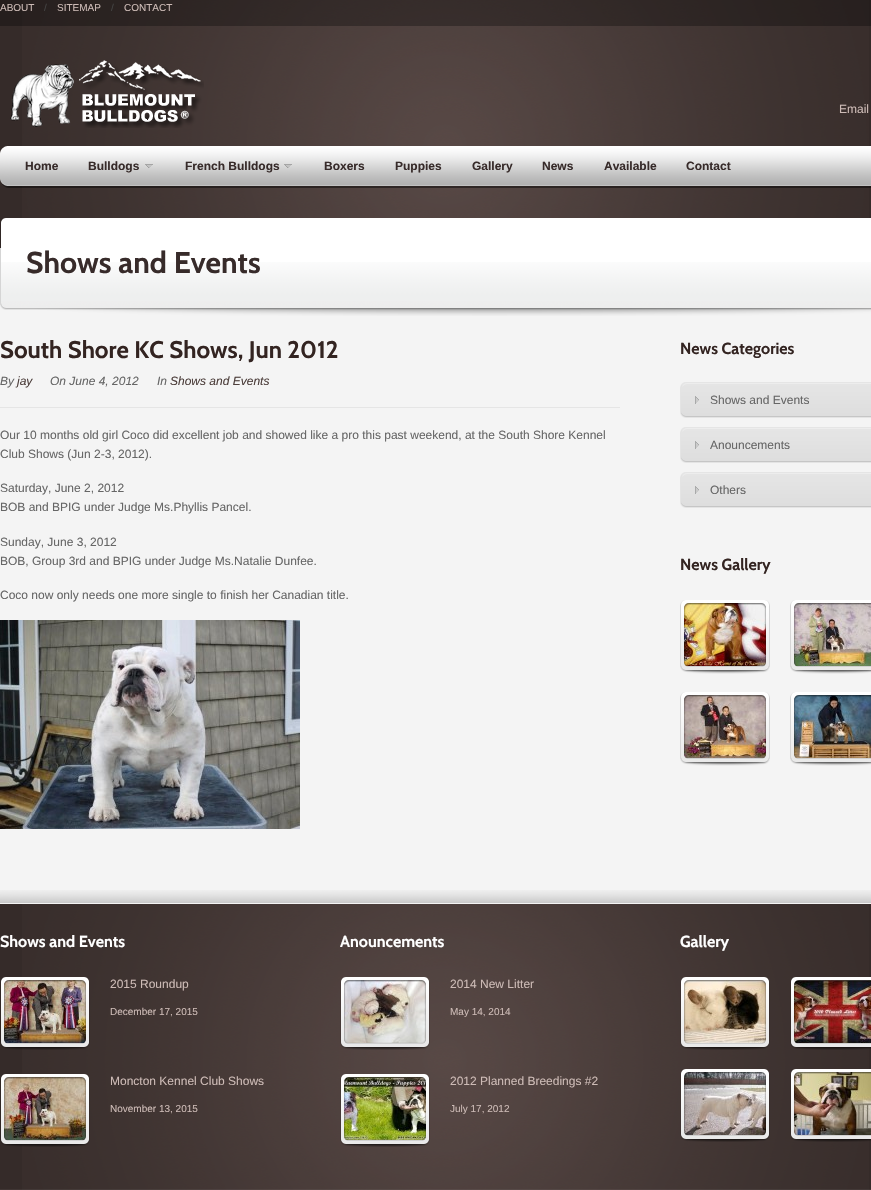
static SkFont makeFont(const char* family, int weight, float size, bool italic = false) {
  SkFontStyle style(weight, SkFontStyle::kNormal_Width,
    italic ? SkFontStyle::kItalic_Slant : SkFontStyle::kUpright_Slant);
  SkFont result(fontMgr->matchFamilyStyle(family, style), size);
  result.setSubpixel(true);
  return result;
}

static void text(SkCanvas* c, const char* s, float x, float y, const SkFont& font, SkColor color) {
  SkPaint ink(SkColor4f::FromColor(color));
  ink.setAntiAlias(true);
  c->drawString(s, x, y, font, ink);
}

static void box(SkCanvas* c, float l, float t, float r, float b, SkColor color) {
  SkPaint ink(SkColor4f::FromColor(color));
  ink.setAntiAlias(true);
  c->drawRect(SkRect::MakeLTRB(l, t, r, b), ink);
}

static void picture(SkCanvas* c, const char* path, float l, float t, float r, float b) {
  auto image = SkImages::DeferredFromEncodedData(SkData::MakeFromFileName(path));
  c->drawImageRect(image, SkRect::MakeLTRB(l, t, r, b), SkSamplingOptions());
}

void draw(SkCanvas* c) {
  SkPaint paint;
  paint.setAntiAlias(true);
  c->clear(0xfff4f4f4);
  box(c, 0, 0, 871, 248, 0xff352b29);
  picture(c, "img_01.png", 22, 0, 869, 218);
  box(c, 0, 0, 871, 26, 0x4d000000);
  SkFont face1 = makeFont("Liberation Sans", 400, 10);
  text(c, "ABOUT", 0, 11, face1, 0xffcdbbb6);
  text(c, "/", 44, 11, face1, 0xff444444);
  text(c, "SITEMAP", 57, 11, face1, 0xffcdbbb6);
  text(c, "/", 111, 11, face1, 0xff444444);
  text(c, "CONTACT", 124, 11, face1, 0xffcdbbb6);
  picture(c, "img_02.png", 10, 60, 204, 128);
  SkFont face2 = makeFont("Liberation Sans", 400, 12);
  text(c, "Email", 839, 113, face2, 0xffcdbbb6);
  picture(c, "img_03.png", 0, 146, 10, 188);
  picture(c, "img_04.png", 10, 146, 871, 188);
  SkFont face3 = makeFont("Liberation Sans", 700, 12);
  text(c, "Home", 25, 170, face3, 0xff372b2a);
  text(c, "Bulldogs", 88, 170, face3, 0xff372b2a);
  picture(c, "img_05.png", 145, 164, 153, 168);
  text(c, "French Bulldogs", 185, 170, face3, 0xff372b2a);
  picture(c, "img_06.png", 284, 164, 292, 168);
  text(c, "Boxers", 324, 170, face3, 0xff372b2a);
  text(c, "Puppies", 395, 170, face3, 0xff372b2a);
  text(c, "Gallery", 472, 170, face3, 0xff372b2a);
  text(c, "News", 542, 170, face3, 0xff372b2a);
  text(c, "Available", 604, 170, face3, 0xff372b2a);
  text(c, "Contact", 686, 170, face3, 0xff372b2a);
  box(c, 1, 248, 871, 262, 0xffffffff);
  picture(c, "img_07.png", 1, 262, 871, 301);
  box(c, 0, 248, 1, 301, 0xffd5d5d5);
  picture(c, "img_08.png", 0, 218, 871, 248);
  SkFont face4 = makeFont("Cabin", 700, 30);
  text(c, "Shows and Events", 26, 273, face4, 0xff372b2a);
  picture(c, "img_09.png", 0, 301, 871, 316);
  picture(c, "img_10.png", 0, 890, 871, 903);
  box(c, 0, 407, 620, 408, 0xffe5e5e5);
  SkFont face5 = makeFont("Cabin", 700, 24);
  text(c, "South Shore KC Shows, Jun 2012", 0, 358, face5, 0xff332421);
  SkFont face6 = makeFont("Liberation Sans", 400, 12, true);
  text(c, "By", 0, 385, face6, 0xff666666);
  text(c, "jay", 17, 385, face6, 0xff4d3f3c);
  text(c, "On June 4, 2012", 50, 385, face6, 0xff666666);
  text(c, "In", 157, 385, face6, 0xff666666);
  text(c, "Shows and Events", 170, 385, face6, 0xff4d3f3c);
  text(c, "Our 10 months old girl Coco did excellent job and showed like a pro this past weekend, at the South Shore Kennel", 0, 439, face2, 0xff666666);
  text(c, "Club Shows (Jun 2-3, 2012).", 0, 458, face2, 0xff666666);
  text(c, "Saturday, June 2, 2012", 0, 492, face2, 0xff666666);
  text(c, "BOB and BPIG under Judge Ms.Phyllis Pancel.", 0, 511, face2, 0xff666666);
  text(c, "Sunday, June 3, 2012", 0, 546, face2, 0xff666666);
  text(c, "BOB, Group 3rd and BPIG under Judge Ms.Natalie Dunfee.", 0, 565, face2, 0xff666666);
  text(c, "Coco now only needs one more single to finish her Canadian title.", 0, 599, face2, 0xff666666);
  picture(c, "img_11.png", 0, 620, 300, 829);
  SkFont face7 = makeFont("Cabin", 700, 16);
  text(c, "News Categories", 680, 354, face7, 0xff332421);
  picture(c, "img_12.png", 680, 382, 871, 418);
  text(c, "Shows and Events", 710, 404, face2, 0xff666666);
  picture(c, "img_12.png", 680, 427, 871, 463);
  text(c, "Anouncements", 710, 449, face2, 0xff666666);
  picture(c, "img_12.png", 680, 472, 871, 508);
  text(c, "Others", 710, 494, face2, 0xff666666);
  text(c, "News Gallery", 680, 570, face7, 0xff332421);
  picture(c, "img_13.png", 680, 600, 770, 674);
  picture(c, "img_14.png", 684, 603, 766, 666);
  picture(c, "img_15.png", 684, 603, 766, 667);
  picture(c, "img_16.png", 790, 600, 871, 674);
  picture(c, "img_17.png", 794, 603, 871, 666);
  picture(c, "img_18.png", 794, 603, 871, 667);
  picture(c, "img_13.png", 680, 692, 770, 766);
  picture(c, "img_19.png", 684, 695, 766, 758);
  picture(c, "img_20.png", 684, 695, 766, 759);
  picture(c, "img_16.png", 790, 692, 871, 766);
  picture(c, "img_21.png", 794, 695, 871, 758);
  picture(c, "img_22.png", 794, 695, 871, 759);
  box(c, 0, 904, 871, 1190, 0xff352b29);
  picture(c, "img_23.png", 22, 904, 869, 1190);
  text(c, "Shows and Events", 0, 947, face7, 0xffffffff);
  picture(c, "img_24.png", 0, 977, 90, 1050);
  picture(c, "img_25.png", 4, 980, 86, 1043);
  picture(c, "img_26.png", 4, 980, 86, 1044);
  text(c, "2015 Roundup", 110, 988, face2, 0xffcdbbb6);
  text(c, "December 17, 2015", 110, 1015, face1, 0xffcdbbb6);
  picture(c, "img_27.png", 0, 1074, 90, 1147);
  picture(c, "img_28.png", 4, 1077, 86, 1140);
  picture(c, "img_29.png", 4, 1077, 86, 1141);
  text(c, "Moncton Kennel Club Shows", 110, 1085, face2, 0xffcdbbb6);
  text(c, "November 13, 2015", 110, 1112, face1, 0xffcdbbb6);
  text(c, "Anouncements", 340, 947, face7, 0xffffffff);
  picture(c, "img_30.png", 340, 977, 430, 1050);
  picture(c, "img_31.png", 344, 980, 426, 1043);
  picture(c, "img_32.png", 344, 980, 426, 1044);
  text(c, "2014 New Litter", 450, 988, face2, 0xffcdbbb6);
  text(c, "May 14, 2014", 450, 1015, face1, 0xffcdbbb6);
  picture(c, "img_33.png", 340, 1074, 430, 1147);
  picture(c, "img_34.png", 344, 1077, 426, 1140);
  picture(c, "img_35.png", 344, 1077, 426, 1141);
  text(c, "2012 Planned Breedings #2", 450, 1085, face2, 0xffcdbbb6);
  text(c, "July 17, 2012", 450, 1112, face1, 0xffcdbbb6);
  text(c, "Gallery", 680, 947, face7, 0xffffffff);
  picture(c, "img_36.png", 680, 977, 770, 1050);
  picture(c, "img_37.png", 684, 980, 766, 1043);
  picture(c, "img_38.png", 684, 980, 766, 1044);
  picture(c, "img_39.png", 790, 977, 871, 1050);
  picture(c, "img_40.png", 794, 980, 871, 1043);
  picture(c, "img_41.png", 794, 980, 871, 1044);
  picture(c, "img_42.png", 680, 1069, 770, 1142);
  picture(c, "img_43.png", 684, 1072, 766, 1135);
  picture(c, "img_44.png", 684, 1072, 766, 1136);
  picture(c, "img_45.png", 790, 1069, 871, 1142);
  picture(c, "img_46.png", 794, 1072, 871, 1135);
  picture(c, "img_47.png", 794, 1072, 871, 1136);
  box(c, 0, 1189, 871, 1190, 0x0dffffff);
}
